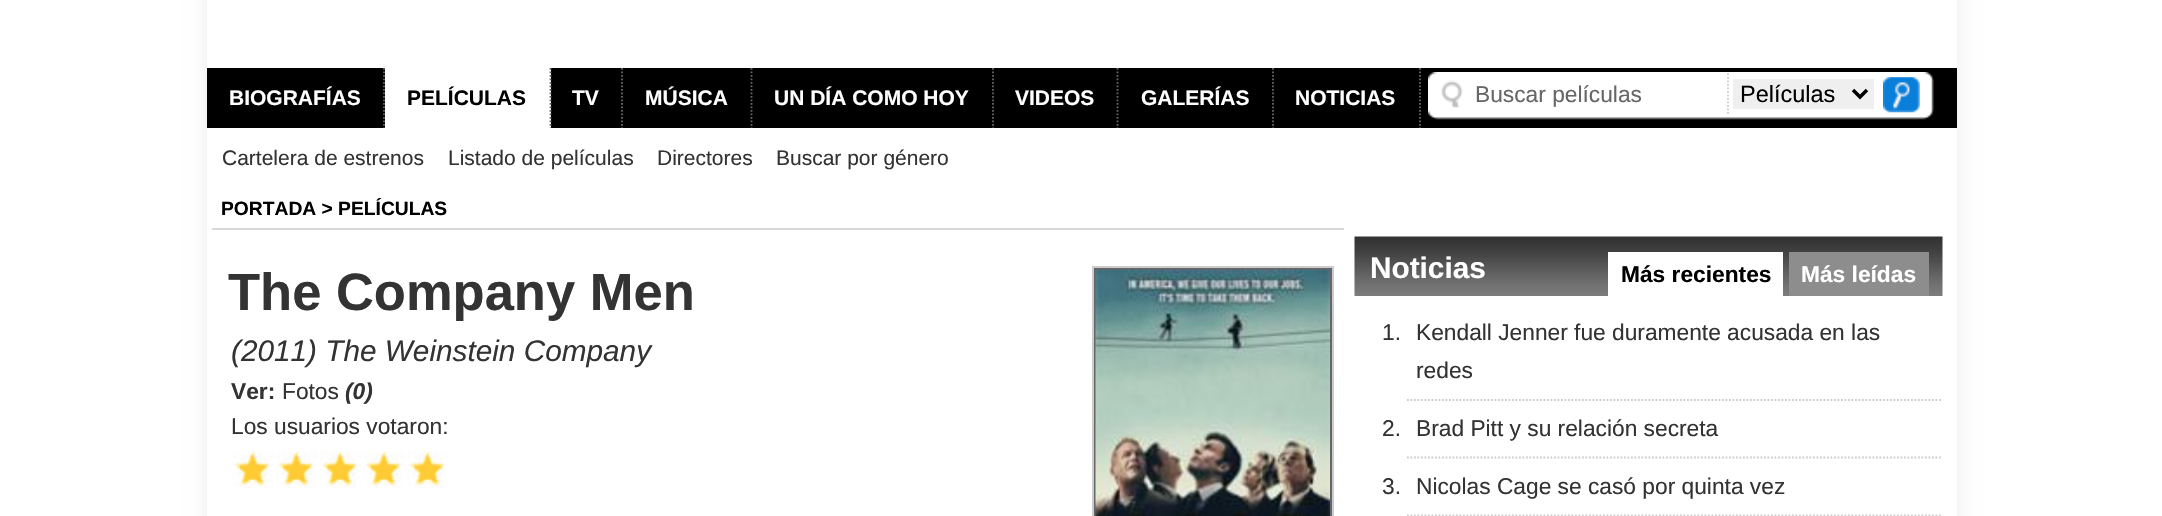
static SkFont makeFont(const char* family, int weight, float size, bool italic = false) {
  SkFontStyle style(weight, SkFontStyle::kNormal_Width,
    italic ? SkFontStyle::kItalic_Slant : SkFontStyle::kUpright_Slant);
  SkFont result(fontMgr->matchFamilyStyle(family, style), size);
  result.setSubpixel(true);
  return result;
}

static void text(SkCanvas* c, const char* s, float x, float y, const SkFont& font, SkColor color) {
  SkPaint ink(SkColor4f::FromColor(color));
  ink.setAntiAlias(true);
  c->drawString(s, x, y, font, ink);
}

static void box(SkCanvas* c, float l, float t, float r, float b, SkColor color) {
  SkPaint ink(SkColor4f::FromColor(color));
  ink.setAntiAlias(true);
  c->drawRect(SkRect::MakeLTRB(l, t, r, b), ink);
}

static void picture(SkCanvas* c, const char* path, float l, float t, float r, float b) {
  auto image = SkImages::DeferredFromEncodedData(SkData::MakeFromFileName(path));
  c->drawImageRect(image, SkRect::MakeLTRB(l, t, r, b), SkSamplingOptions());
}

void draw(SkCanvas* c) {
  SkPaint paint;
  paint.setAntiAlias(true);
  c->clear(0xffffffff);
  paint.setColor(0xffebebeb);
  paint.setMaskFilter(SkMaskFilter::MakeBlur(kNormal_SkBlurStyle, 9));
  c->drawRect(SkRect::MakeLTRB(207, -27, 1957, 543), paint);
  paint.setMaskFilter(nullptr);
  box(c, 207, 0, 1957, 516, 0xffffffff);
  box(c, 207, 68, 1957, 128, 0xff000000);
  paint.setStyle(SkPaint::kStroke_Style);
  paint.setStrokeWidth(1.8f);
  paint.setColor(0xff666666);
  paint.setPathEffect(SkDashPathEffect::Make({{1.75f, 1.75f}}, 0));
  c->drawPath(SkPathBuilder().moveTo(384, 68).lineTo(384, 128).detach(), paint);
  paint.setPathEffect(nullptr);
  SkFont face1 = makeFont("Liberation Sans", 700, 21);
  text(c, "BIOGRAFÍAS", 229, 105, face1, 0xffffffff);
  box(c, 385, 68, 551, 128, 0xffffffff);
  paint.setPathEffect(SkDashPathEffect::Make({{1.75f, 1.75f}}, 0));
  c->drawPath(SkPathBuilder().moveTo(550.5f, 68).lineTo(550.5f, 128).detach(), paint);
  paint.setPathEffect(nullptr);
  text(c, "PELÍCULAS", 407, 105, face1, 0xff000000);
  paint.setPathEffect(SkDashPathEffect::Make({{1.75f, 1.75f}}, 0));
  c->drawPath(SkPathBuilder().moveTo(622, 68).lineTo(622, 128).detach(), paint);
  paint.setPathEffect(nullptr);
  text(c, "TV", 572, 105, face1, 0xffffffff);
  paint.setPathEffect(SkDashPathEffect::Make({{1.75f, 1.75f}}, 0));
  c->drawPath(SkPathBuilder().moveTo(751.5f, 68).lineTo(751.5f, 128).detach(), paint);
  paint.setPathEffect(nullptr);
  text(c, "MÚSICA", 645, 105, face1, 0xffffffff);
  paint.setPathEffect(SkDashPathEffect::Make({{1.75f, 1.75f}}, 0));
  c->drawPath(SkPathBuilder().moveTo(993, 68).lineTo(993, 128).detach(), paint);
  paint.setPathEffect(nullptr);
  text(c, "UN DÍA COMO HOY", 774, 105, face1, 0xffffffff);
  paint.setPathEffect(SkDashPathEffect::Make({{1.75f, 1.75f}}, 0));
  c->drawPath(SkPathBuilder().moveTo(1117.5f, 68).lineTo(1117.5f, 128).detach(), paint);
  paint.setPathEffect(nullptr);
  text(c, "VIDEOS", 1015, 105, face1, 0xffffffff);
  paint.setPathEffect(SkDashPathEffect::Make({{1.75f, 1.75f}}, 0));
  c->drawPath(SkPathBuilder().moveTo(1273, 68).lineTo(1273, 128).detach(), paint);
  paint.setPathEffect(nullptr);
  text(c, "GALERÍAS", 1141, 105, face1, 0xffffffff);
  paint.setPathEffect(SkDashPathEffect::Make({{1.75f, 1.75f}}, 0));
  c->drawPath(SkPathBuilder().moveTo(1420, 68).lineTo(1420, 128).detach(), paint);
  paint.setPathEffect(nullptr);
  text(c, "NOTICIAS", 1295, 105, face1, 0xffffffff);
  picture(c, "img_01.png", 1428, 72, 1934, 120);
  picture(c, "img_02.png", 1441, 80, 1463, 108);
  paint.setColor(0xffcccccc);
  paint.setPathEffect(SkDashPathEffect::Make({{1.75f, 1.75f}}, 0));
  c->drawPath(SkPathBuilder().moveTo(1728, 73.5f).lineTo(1728, 114).detach(), paint);
  paint.setPathEffect(nullptr);
  SkFont face2 = makeFont("Liberation Sans", 400, 22.75f);
  text(c, "Buscar películas", 1475, 102, face2, 0xff666666);
  box(c, 1733, 79, 1874, 109, 0xffefefef);
  paint.setStrokeWidth(3.5f);
  paint.setColor(0xff000000);
  c->drawPath(SkPathBuilder().moveTo(1853, 90).lineTo(1860, 97).lineTo(1867, 90).detach(), paint);
  SkFont face3 = makeFont("Liberation Sans", 400, 23.5f);
  text(c, "Películas", 1740, 102, face3, 0xff000000);
  picture(c, "img_03.png", 1883, 77, 1920, 113);
  SkFont face4 = makeFont("Liberation Sans", 400, 21);
  text(c, "Cartelera de estrenos", 222, 165, face4, 0xff333333);
  text(c, "Listado de películas", 448, 165, face4, 0xff333333);
  text(c, "Directores", 657, 165, face4, 0xff333333);
  text(c, "Buscar por género", 776, 165, face4, 0xff333333);
  box(c, 212, 228, 1344, 230, 0xffd8d8d8);
  SkFont face5 = makeFont("Liberation Sans", 700, 19.25f);
  text(c, "PORTADA > PELÍCULAS", 221, 215, face5, 0xff000000);
  SkFont face6 = makeFont("Liberation Sans", 700, 52.5f);
  text(c, "The Company Men", 228, 310, face6, 0xff333333);
  paint.setStrokeWidth(2);
  paint.setColor(0xffcccccc);
  c->drawRect(SkRect::MakeLTRB(1093, 267, 1333, 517), paint);
  paint.setColor(0xff666666);
  c->drawRect(SkRect::MakeLTRB(1095, 269, 1331, 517), paint);
  picture(c, "img_04.png", 1095, 269, 1330, 516);
  SkFont face7 = makeFont("Liberation Sans", 400, 29.75f, true);
  text(c, "(2011) The Weinstein Company", 231, 361, face7, 0xff333333);
  SkFont face8 = makeFont("Liberation Sans", 700, 22.75f);
  text(c, "Ver:", 231, 399, face8, 0xff333333);
  text(c, "Fotos", 282, 399, face2, 0xff333333);
  SkFont face9 = makeFont("Liberation Sans", 700, 22.75f, true);
  text(c, "(0)", 345, 399, face9, 0xff333333);
  text(c, "Los usuarios votaron:", 231, 434, face2, 0xff333333);
  picture(c, "img_05.png", 233, 452, 445, 486);
  picture(c, "img_06.png", 235, 451, 447, 488);
  picture(c, "img_07.png", 1354, 236, 1943, 296);
  SkFont face10 = makeFont("Liberation Sans", 700, 29.75f);
  text(c, "Noticias", 1370, 278, face10, 0xffffffff);
  box(c, 1608, 252, 1783, 296, 0xffffffff);
  text(c, "Más recientes", 1621, 282, face8, 0xff000000);
  box(c, 1789, 252, 1929, 296, 0xff8d8d8d);
  text(c, "Más leídas", 1801, 282, face8, 0xffffffff);
  paint.setStrokeWidth(1.8f);
  paint.setColor(0xffcccccc);
  paint.setPathEffect(SkDashPathEffect::Make({{1.75f, 1.75f}}, 0));
  c->drawPath(SkPathBuilder().moveTo(1407, 400).lineTo(1942.5f, 400).detach(), paint);
  paint.setPathEffect(nullptr);
  text(c, "1.", 1382, 340, face2, 0xff333333);
  text(c, "Kendall Jenner fue duramente acusada en las", 1416, 340, face2, 0xff333333);
  text(c, "redes", 1416, 378, face2, 0xff333333);
  paint.setPathEffect(SkDashPathEffect::Make({{1.75f, 1.75f}}, 0));
  c->drawPath(SkPathBuilder().moveTo(1407, 457.5f).lineTo(1942.5f, 457.5f).detach(), paint);
  paint.setPathEffect(nullptr);
  text(c, "2.", 1382, 436, face2, 0xff333333);
  text(c, "Brad Pitt y su relación secreta", 1416, 436, face2, 0xff333333);
  paint.setPathEffect(SkDashPathEffect::Make({{1.75f, 1.75f}}, 0));
  c->drawPath(SkPathBuilder().moveTo(1407, 515.5f).lineTo(1942.5f, 515.5f).detach(), paint);
  paint.setPathEffect(nullptr);
  text(c, "3.", 1382, 494, face2, 0xff333333);
  text(c, "Nicolas Cage se casó por quinta vez", 1416, 494, face2, 0xff333333);
}
